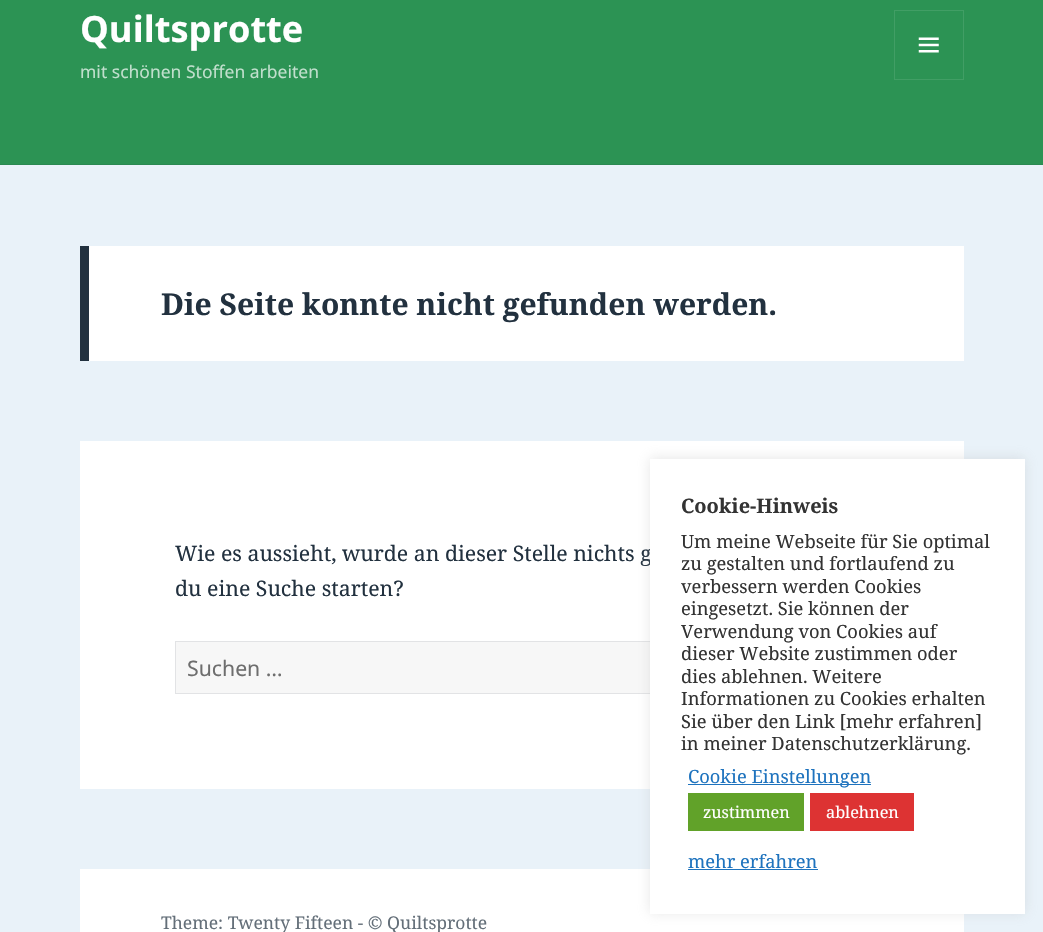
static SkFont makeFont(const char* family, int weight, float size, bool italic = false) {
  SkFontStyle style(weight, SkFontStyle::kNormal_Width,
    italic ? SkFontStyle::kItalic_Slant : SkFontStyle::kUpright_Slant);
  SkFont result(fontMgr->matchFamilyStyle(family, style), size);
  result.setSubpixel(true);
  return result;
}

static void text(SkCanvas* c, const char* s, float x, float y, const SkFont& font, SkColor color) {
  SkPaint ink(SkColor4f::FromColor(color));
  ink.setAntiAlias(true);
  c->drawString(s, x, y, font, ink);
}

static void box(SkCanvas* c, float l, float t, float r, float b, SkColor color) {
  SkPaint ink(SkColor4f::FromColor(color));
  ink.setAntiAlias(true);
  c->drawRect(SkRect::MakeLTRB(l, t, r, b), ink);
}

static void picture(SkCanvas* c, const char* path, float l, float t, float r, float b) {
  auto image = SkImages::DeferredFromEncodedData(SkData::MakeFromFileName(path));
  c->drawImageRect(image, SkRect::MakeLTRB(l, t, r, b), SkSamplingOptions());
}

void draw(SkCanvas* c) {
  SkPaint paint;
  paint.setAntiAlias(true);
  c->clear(0xffe9f2f9);
  box(c, 0, 0, 1043, 164, 0xff2c9354);
  box(c, 0, 164, 1043, 165, 0xff2b8952);
  SkFont face1 = makeFont("Noto Sans", 700, 36.25f);
  text(c, "Quiltsprotte", 80, 42, face1, 0xffffffff);
  paint.setStyle(SkPaint::kStroke_Style);
  paint.setStrokeWidth(1);
  paint.setColor(0xff419e65);
  c->drawRect(SkRect::MakeLTRB(894.5f, 10.5f, 963.5f, 79.5f), paint);
  picture(c, "img_01.png", 918, 37, 939, 53);
  SkFont face2 = makeFont("Noto Sans", 400, 17.5f);
  text(c, "mit schönen Stoffen arbeiten", 80, 78, face2, 0xffc0dfcc);
  box(c, 89, 246, 964, 361, 0xffffffff);
  box(c, 80, 246, 89, 361, 0xff22313f);
  SkFont face3 = makeFont("Noto Serif", 700, 30);
  text(c, "Die Seite konnte nicht gefunden werden.", 161, 315, face3, 0xff22313f);
  box(c, 80, 441, 964, 789, 0xffffffff);
  SkFont face4 = makeFont("Noto Serif", 400, 21.25f);
  text(c, "Wie es aussieht, wurde an dieser Stelle nichts g", 175, 561, face4, 0xff22313f);
  text(c, "du eine Suche starten?", 175, 596, face4, 0xff22313f);
  box(c, 176, 642, 650, 693, 0xfff7f7f7);
  paint.setColor(0xffe2e3e5);
  c->drawRect(SkRect::MakeLTRB(175.5f, 641.5f, 868.5f, 693.5f), paint);
  SkFont face5 = makeFont("Noto Sans", 400, 21.25f);
  text(c, "Suchen …", 187, 676, face5, 0xff6e6e6e);
  box(c, 80, 869, 964, 932, 0xffffffff);
  SkFont face6 = makeFont("Noto Serif", 400, 17.5f);
  text(c, "Theme: Twenty Fifteen - © Quiltsprotte", 161, 929, face6, 0xff646f79);
  paint.setStyle(SkPaint::kFill_Style);
  paint.setColor(0x4dacabab);
  paint.setMaskFilter(SkMaskFilter::MakeBlur(kNormal_SkBlurStyle, 6));
  c->drawRect(SkRect::MakeLTRB(650, 458, 1025, 913), paint);
  paint.setMaskFilter(nullptr);
  box(c, 650, 459, 1025, 914, 0xffffffff);
  SkFont face7 = makeFont("Noto Serif", 700, 20);
  text(c, "Cookie-Hinweis", 681, 513, face7, 0xff333333);
  SkFont face8 = makeFont("Noto Serif", 400, 18.3f);
  text(c, "Um meine Webseite für Sie optimal", 681, 548, face8, 0xff333333);
  text(c, "zu gestalten und fortlaufend zu", 681, 570, face8, 0xff333333);
  text(c, "verbessern werden Cookies", 681, 593, face8, 0xff333333);
  text(c, "eingesetzt. Sie können der", 681, 615, face8, 0xff333333);
  text(c, "Verwendung von Cookies auf", 681, 638, face8, 0xff333333);
  text(c, "dieser Website zustimmen oder", 681, 660, face8, 0xff333333);
  text(c, "dies ablehnen. Weitere", 681, 683, face8, 0xff333333);
  text(c, "Informationen zu Cookies erhalten", 681, 705, face8, 0xff333333);
  text(c, "Sie über den Link [mehr erfahren]", 681, 728, face8, 0xff333333);
  text(c, "in meiner Datenschutzerklärung.", 681, 750, face8, 0xff333333);
  box(c, 688, 784, 871, 785, 0xff1e73be);
  text(c, "Cookie Einstellungen", 688, 783, face8, 0xff1e73be);
  box(c, 688, 793, 804, 831, 0xff61a229);
  SkFont face9 = makeFont("Noto Serif", 400, 16.25f);
  text(c, "zustimmen", 703, 818, face9, 0xffffffff);
  box(c, 810, 793, 914, 831, 0xffdd3333);
  text(c, "ablehnen", 826, 818, face9, 0xffffffff);
  text(c, "mehr erfahren", 688, 868, face8, 0xff1e73be);
  box(c, 688, 869, 818, 870, 0xff1e73be);
}
